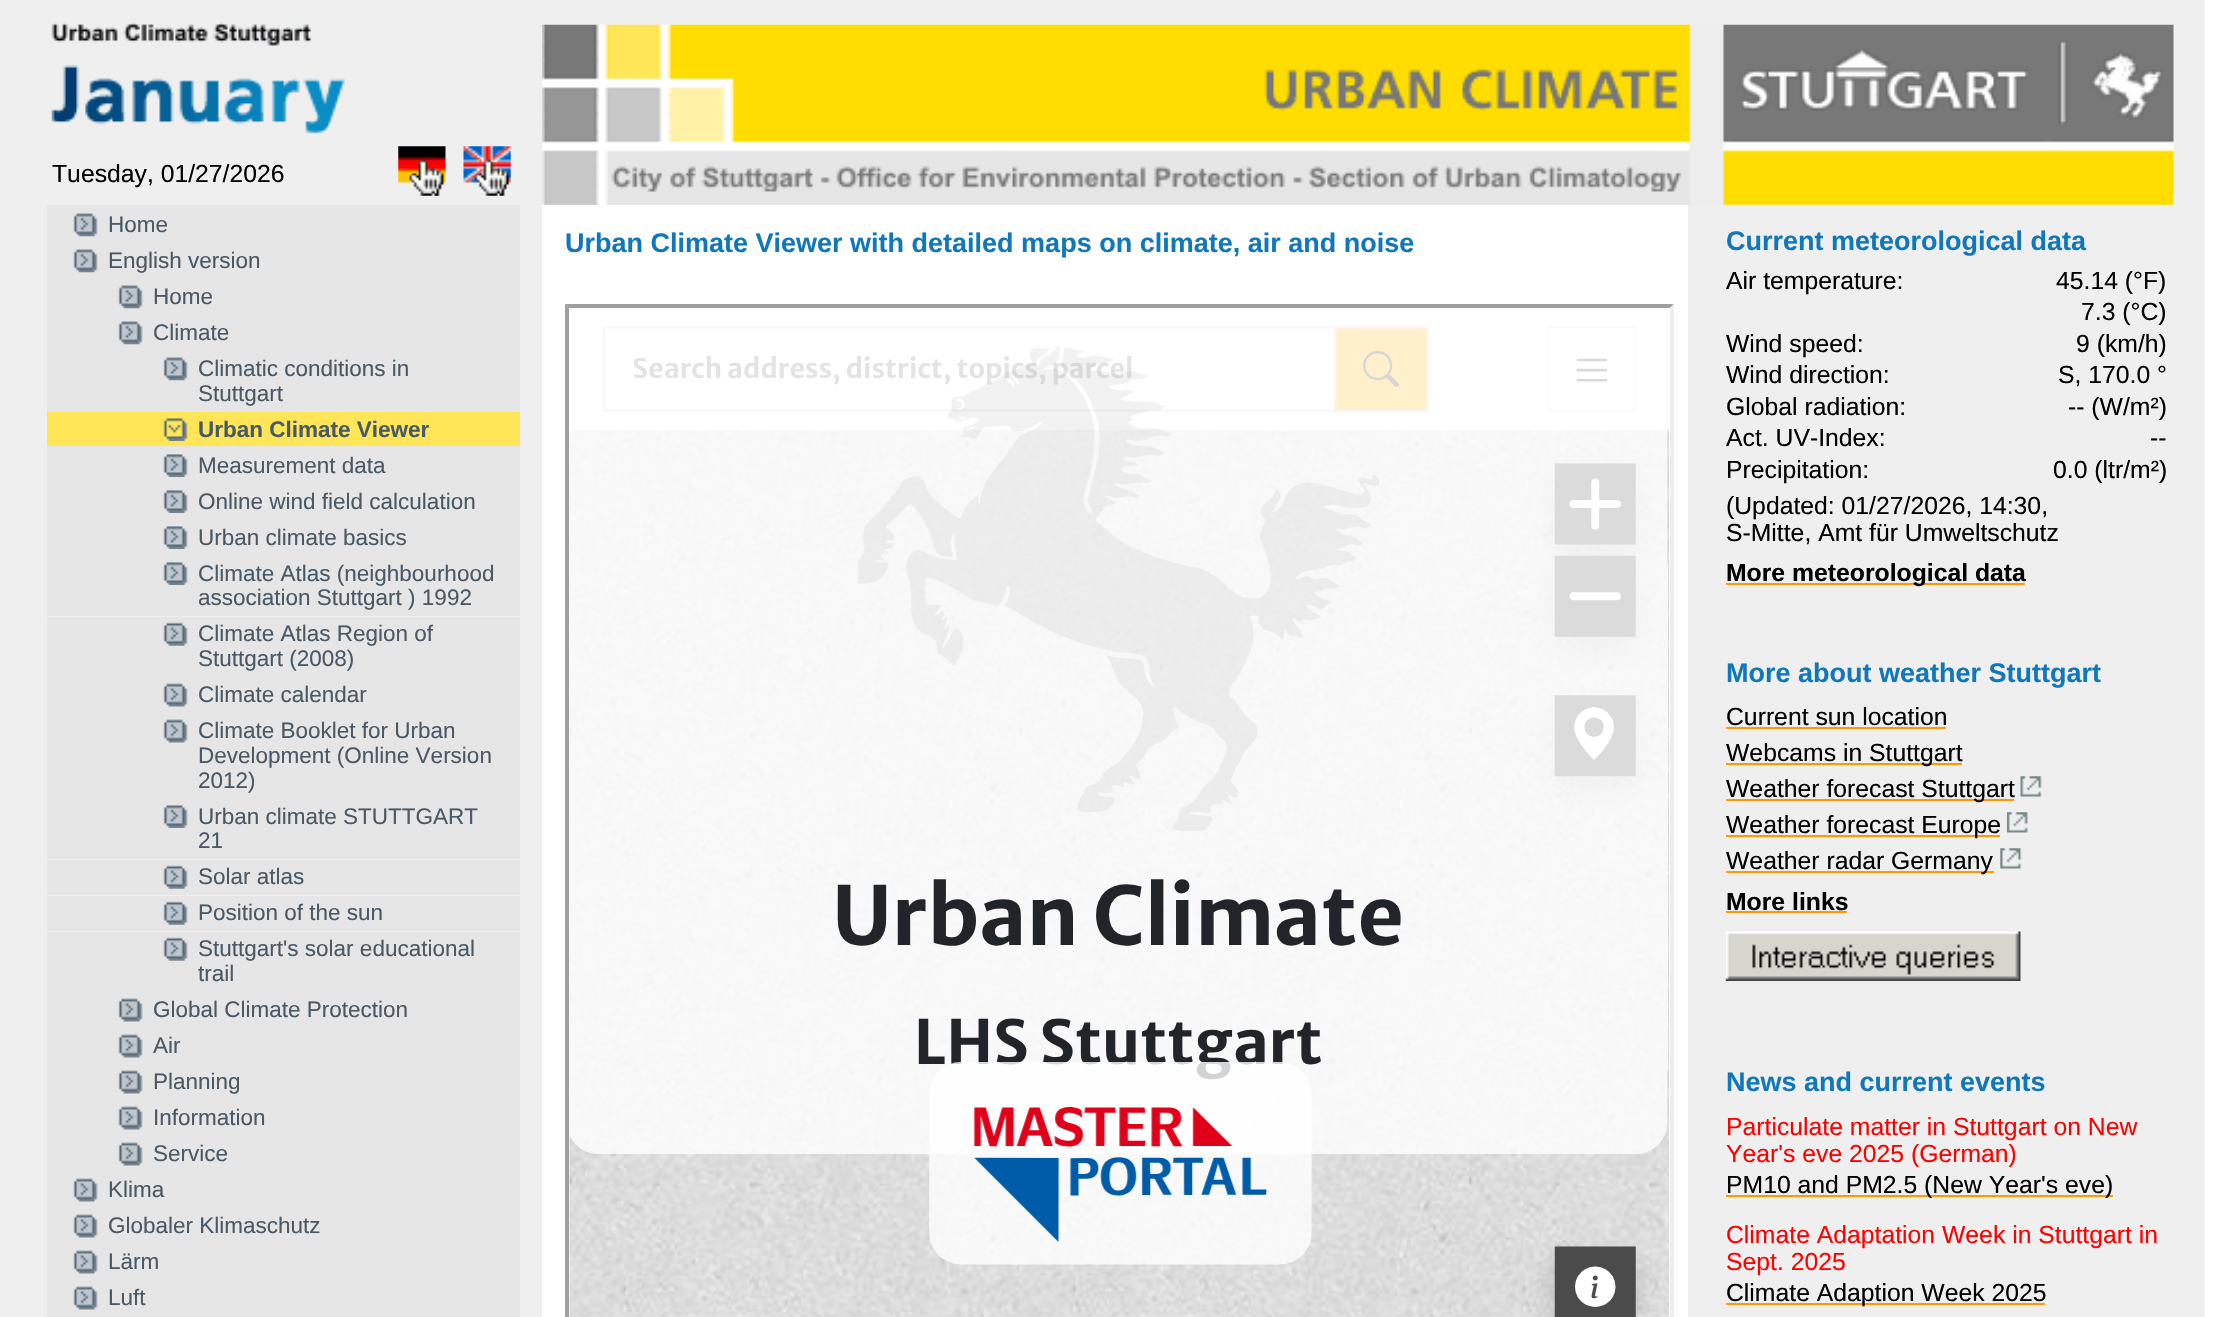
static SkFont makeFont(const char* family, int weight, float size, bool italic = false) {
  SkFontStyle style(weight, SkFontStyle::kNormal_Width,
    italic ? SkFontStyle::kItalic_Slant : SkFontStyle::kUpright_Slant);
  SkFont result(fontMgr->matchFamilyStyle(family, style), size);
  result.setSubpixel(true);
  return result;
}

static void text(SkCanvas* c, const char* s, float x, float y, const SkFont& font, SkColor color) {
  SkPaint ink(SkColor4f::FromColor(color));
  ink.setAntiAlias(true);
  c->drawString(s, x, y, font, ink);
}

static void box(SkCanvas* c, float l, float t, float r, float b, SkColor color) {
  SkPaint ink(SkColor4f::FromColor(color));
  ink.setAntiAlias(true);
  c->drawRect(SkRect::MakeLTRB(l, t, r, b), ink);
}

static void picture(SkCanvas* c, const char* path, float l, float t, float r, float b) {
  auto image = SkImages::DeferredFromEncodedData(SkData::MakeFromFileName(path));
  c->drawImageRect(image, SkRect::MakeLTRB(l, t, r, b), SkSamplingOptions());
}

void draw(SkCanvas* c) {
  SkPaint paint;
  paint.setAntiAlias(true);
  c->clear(0xffffffff);
  box(c, 0, 0, 2205, 1317, 0xffefefef);
  picture(c, "img_01.png", 51, 22, 345, 134);
  SkFont face1 = makeFont("Liberation Sans", 400, 24.75f);
  text(c, "Tuesday, 01/27/2026", 52, 182, face1, 0xff000000);
  picture(c, "img_02.png", 398, 146, 446, 196);
  picture(c, "img_03.png", 463, 146, 511, 196);
  picture(c, "img_04.png", 542, 24, 2174, 205);
  box(c, 47, 205, 520, 412, 0xffe6e6e6);
  picture(c, "img_05.png", 73, 213, 98, 237);
  SkFont face2 = makeFont("Liberation Sans", 400, 22.5f);
  text(c, "Home", 108, 232, face2, 0xff4a5966);
  picture(c, "img_05.png", 73, 249, 98, 273);
  text(c, "English version", 108, 268, face2, 0xff4a5966);
  picture(c, "img_06.png", 118, 285, 143, 309);
  text(c, "Home", 153, 304, face2, 0xff4a5966);
  picture(c, "img_07.png", 118, 321, 143, 345);
  text(c, "Climate", 153, 340, face2, 0xff4a5966);
  picture(c, "img_07.png", 163, 357, 188, 381);
  text(c, "Climatic conditions in", 198, 376, face2, 0xff4a5966);
  text(c, "Stuttgart", 198, 401, face2, 0xff4a5966);
  box(c, 47, 412, 520, 446, 0xffffe558);
  picture(c, "img_08.png", 163, 418, 188, 441);
  SkFont face3 = makeFont("Liberation Sans", 700, 22.5f);
  text(c, "Urban Climate Viewer", 198, 437, face3, 0xff4a5966);
  box(c, 47, 446, 520, 616, 0xffe6e6e6);
  picture(c, "img_09.png", 163, 454, 188, 477);
  text(c, "Measurement data", 198, 473, face2, 0xff4a5966);
  picture(c, "img_09.png", 163, 490, 188, 513);
  text(c, "Online wind field calculation", 198, 509, face2, 0xff4a5966);
  picture(c, "img_09.png", 163, 526, 188, 549);
  text(c, "Urban climate basics", 198, 545, face2, 0xff4a5966);
  picture(c, "img_10.png", 163, 562, 188, 585);
  text(c, "Climate Atlas (neighbourhood", 198, 581, face2, 0xff4a5966);
  text(c, "association Stuttgart ) 1992", 198, 605, face2, 0xff4a5966);
  box(c, 47, 617, 520, 859, 0xffe6e6e6);
  picture(c, "img_11.png", 163, 622, 188, 646);
  text(c, "Climate Atlas Region of", 198, 641, face2, 0xff4a5966);
  text(c, "Stuttgart (2008)", 198, 666, face2, 0xff4a5966);
  picture(c, "img_12.png", 163, 683, 188, 707);
  text(c, "Climate calendar", 198, 702, face2, 0xff4a5966);
  picture(c, "img_12.png", 163, 719, 188, 743);
  text(c, "Climate Booklet for Urban", 198, 738, face2, 0xff4a5966);
  text(c, "Development (Online Version", 198, 763, face2, 0xff4a5966);
  text(c, "2012)", 198, 788, face2, 0xff4a5966);
  picture(c, "img_09.png", 163, 805, 188, 828);
  text(c, "Urban climate STUTTGART", 198, 824, face2, 0xff4a5966);
  text(c, "21", 198, 848, face2, 0xff4a5966);
  box(c, 47, 860, 520, 895, 0xffe6e6e6);
  picture(c, "img_11.png", 163, 865, 188, 889);
  text(c, "Solar atlas", 198, 884, face2, 0xff4a5966);
  box(c, 47, 896, 520, 931, 0xffe6e6e6);
  picture(c, "img_11.png", 163, 901, 188, 925);
  text(c, "Position of the sun", 198, 920, face2, 0xff4a5966);
  box(c, 47, 932, 520, 1317, 0xffe6e6e6);
  picture(c, "img_11.png", 163, 937, 188, 961);
  text(c, "Stuttgart's solar educational", 198, 956, face2, 0xff4a5966);
  text(c, "trail", 198, 981, face2, 0xff4a5966);
  picture(c, "img_12.png", 118, 998, 143, 1022);
  text(c, "Global Climate Protection", 153, 1017, face2, 0xff4a5966);
  picture(c, "img_12.png", 118, 1034, 143, 1058);
  text(c, "Air", 153, 1053, face2, 0xff4a5966);
  picture(c, "img_12.png", 118, 1070, 143, 1094);
  text(c, "Planning", 153, 1089, face2, 0xff4a5966);
  picture(c, "img_12.png", 118, 1106, 143, 1130);
  text(c, "Information", 153, 1125, face2, 0xff4a5966);
  picture(c, "img_12.png", 118, 1142, 143, 1166);
  text(c, "Service", 153, 1161, face2, 0xff4a5966);
  picture(c, "img_13.png", 73, 1178, 98, 1202);
  text(c, "Klima", 108, 1197, face2, 0xff4a5966);
  picture(c, "img_13.png", 73, 1214, 98, 1238);
  text(c, "Globaler Klimaschutz", 108, 1233, face2, 0xff4a5966);
  picture(c, "img_13.png", 73, 1250, 98, 1274);
  text(c, "Lärm", 108, 1269, face2, 0xff4a5966);
  picture(c, "img_14.png", 73, 1286, 98, 1310);
  text(c, "Luft", 108, 1305, face2, 0xff4a5966);
  box(c, 542, 205, 1688, 1317, 0xffffffff);
  SkFont face4 = makeFont("Liberation Sans", 700, 27);
  text(c, "Urban Climate Viewer with detailed maps on climate, air and noise", 565, 252, face4, 0xff1078ba);
  paint.setColor(0xff9f9f9f);
  c->drawPath(SkPathBuilder().moveTo(565, 304).lineTo(1674, 304).lineTo(1670, 308).lineTo(569, 308).close().detach(), paint);
  c->drawPath(SkPathBuilder().moveTo(565, 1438).lineTo(565, 304).lineTo(569, 308).lineTo(569, 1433).close().detach(), paint);
  picture(c, "img_15.png", 569, 326, 1670, 1317);
  paint.setColor(0xffeeeeee);
  c->drawPath(SkPathBuilder().moveTo(1674, 304).lineTo(1674, 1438).lineTo(1670, 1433).lineTo(1670, 308).close().detach(), paint);
  text(c, "Current meteorological data", 1726, 250, face4, 0xff1078ba);
  text(c, "Air temperature:", 1726, 289, face1, 0xff000000);
  text(c, "45.14 (°F)", 2056, 289, face1, 0xff000000);
  text(c, "7.3 (°C)", 2081, 320, face1, 0xff000000);
  text(c, "Wind speed:", 1726, 352, face1, 0xff000000);
  text(c, "9 (km/h)", 2076, 352, face1, 0xff000000);
  text(c, "Wind direction:", 1726, 383, face1, 0xff000000);
  text(c, "S, 170.0 °", 2058, 383, face1, 0xff000000);
  text(c, "Global radiation:", 1726, 415, face1, 0xff000000);
  text(c, "-- (W/m²)", 2068, 415, face1, 0xff000000);
  text(c, "Act. UV-Index:", 1726, 446, face1, 0xff000000);
  text(c, "--", 2150, 446, face1, 0xff000000);
  text(c, "Precipitation:", 1726, 478, face1, 0xff000000);
  text(c, "0.0 (ltr/m²)", 2053, 478, face1, 0xff000000);
  text(c, "(Updated: 01/27/2026, 14:30,", 1726, 514, face1, 0xff000000);
  text(c, "S-Mitte, Amt für Umweltschutz", 1726, 541, face1, 0xff000000);
  box(c, 1726, 583, 2025, 585, 0xffff9900);
  SkFont face5 = makeFont("Liberation Sans", 700, 24.75f);
  text(c, "More meteorological data", 1726, 581, face5, 0xff000000);
  text(c, "More about weather Stuttgart", 1726, 682, face4, 0xff1078ba);
  text(c, "Current sun location", 1726, 725, face1, 0xff000000);
  box(c, 1726, 727, 1946, 729, 0xffff9900);
  box(c, 1726, 763, 1962, 765, 0xffff9900);
  text(c, "Webcams in Stuttgart", 1726, 761, face1, 0xff000000);
  box(c, 1726, 799, 2014, 801, 0xffff9900);
  text(c, "Weather forecast Stuttgart", 1726, 797, face1, 0xff000000);
  picture(c, "img_16.png", 2020, 776, 2042, 797);
  box(c, 1726, 835, 2000, 837, 0xffff9900);
  text(c, "Weather forecast Europe", 1726, 833, face1, 0xff000000);
  picture(c, "img_17.png", 2007, 812, 2028, 833);
  box(c, 1726, 871, 1994, 873, 0xffff9900);
  text(c, "Weather radar Germany", 1726, 869, face1, 0xff000000);
  picture(c, "img_18.png", 2000, 848, 2022, 869);
  text(c, "More links", 1726, 910, face5, 0xff000000);
  box(c, 1726, 911, 1847, 913, 0xffff9900);
  picture(c, "img_19.png", 1725, 931, 2021, 981);
  text(c, "News and current events", 1726, 1091, face4, 0xff1078ba);
  text(c, "Particulate matter in Stuttgart on New", 1726, 1135, face1, 0xffff0000);
  text(c, "Year's eve 2025 (German)", 1726, 1162, face1, 0xffff0000);
  box(c, 1726, 1195, 2113, 1197, 0xffff9900);
  text(c, "PM10 and PM2.5 (New Year's eve)", 1726, 1193, face1, 0xff000000);
  text(c, "Climate Adaptation Week in Stuttgart in", 1726, 1243, face1, 0xffff0000);
  text(c, "Sept. 2025", 1726, 1270, face1, 0xffff0000);
  box(c, 1726, 1303, 2045, 1305, 0xffff9900);
  text(c, "Climate Adaption Week 2025", 1726, 1301, face1, 0xff000000);
}
